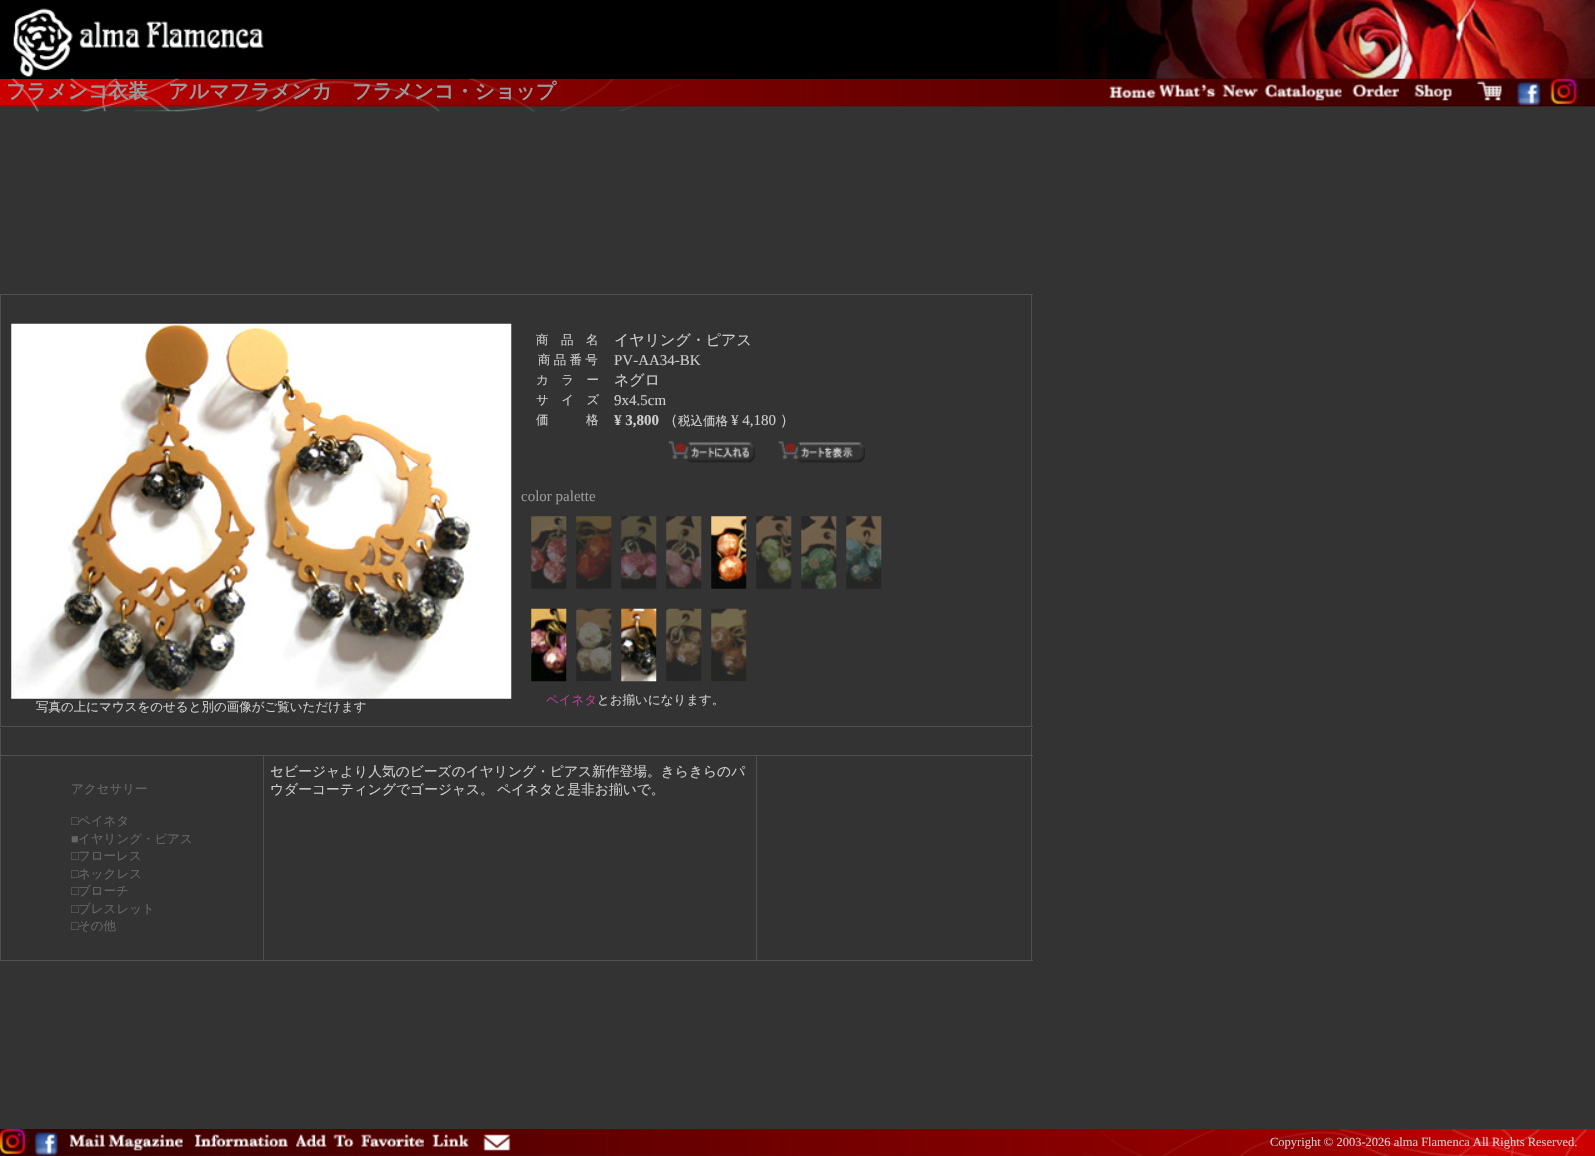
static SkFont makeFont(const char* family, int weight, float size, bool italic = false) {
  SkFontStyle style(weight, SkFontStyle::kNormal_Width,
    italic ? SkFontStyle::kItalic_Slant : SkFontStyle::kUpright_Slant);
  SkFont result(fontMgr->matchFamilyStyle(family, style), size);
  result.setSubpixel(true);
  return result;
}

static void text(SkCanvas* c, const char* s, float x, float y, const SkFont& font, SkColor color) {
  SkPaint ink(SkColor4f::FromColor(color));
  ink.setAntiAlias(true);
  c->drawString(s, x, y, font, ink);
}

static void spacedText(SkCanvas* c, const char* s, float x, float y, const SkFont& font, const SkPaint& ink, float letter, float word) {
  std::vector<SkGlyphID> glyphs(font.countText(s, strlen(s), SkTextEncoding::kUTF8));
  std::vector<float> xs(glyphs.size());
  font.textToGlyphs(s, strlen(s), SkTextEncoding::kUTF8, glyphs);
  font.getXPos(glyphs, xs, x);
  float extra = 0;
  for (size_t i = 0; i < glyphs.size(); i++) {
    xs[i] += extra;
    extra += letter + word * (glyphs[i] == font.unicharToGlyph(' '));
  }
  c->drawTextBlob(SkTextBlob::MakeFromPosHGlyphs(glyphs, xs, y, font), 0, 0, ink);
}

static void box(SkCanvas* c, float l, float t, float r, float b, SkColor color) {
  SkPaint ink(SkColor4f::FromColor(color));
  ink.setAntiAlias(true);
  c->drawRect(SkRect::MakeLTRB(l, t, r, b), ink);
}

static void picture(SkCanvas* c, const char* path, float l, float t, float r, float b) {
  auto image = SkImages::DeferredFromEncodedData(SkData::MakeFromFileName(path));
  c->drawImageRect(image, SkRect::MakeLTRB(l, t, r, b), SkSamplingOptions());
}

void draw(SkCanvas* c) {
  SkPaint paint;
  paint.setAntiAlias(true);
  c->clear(0xff333333);
  box(c, 0, 0, 1595, 106, 0xff000000);
  picture(c, "img_01.png", 13, 8, 264, 77);
  picture(c, "img_02.png", 1058, 0, 1595, 79);
  picture(c, "img_03.png", 0, 79, 1595, 107);
  picture(c, "img_04.png", 11, 78, 681, 112);
  picture(c, "img_05.png", 1109, 85, 1156, 98);
  picture(c, "img_06.png", 1159, 84, 1258, 97);
  picture(c, "img_07.png", 1264, 84, 1342, 101);
  picture(c, "img_08.png", 1352, 84, 1400, 97);
  picture(c, "img_09.png", 1414, 84, 1452, 101);
  picture(c, "img_10.png", 1476, 80, 1502, 101);
  picture(c, "img_11.png", 1516, 81, 1541, 106);
  picture(c, "img_12.png", 1550, 78, 1577, 104);
  SkFont face1 = makeFont("WenQuanYi Zen Hei", 700, 20);
  text(c, "フラメンコ衣装　アルマフラメンカ　フラメンコ・ショップ", 6, 98, face1, 0xff999999);
  box(c, 0, 294, 1033, 295, 0xff505050);
  box(c, 0, 295, 1, 726, 0xff505050);
  picture(c, "img_13.png", 11, 323, 512, 699);
  SkFont face2 = makeFont("WenQuanYi Zen Hei", 500, 12.5f);
  text(c, "写真の上にマウスをのせると別の画像がご覧いただけます", 36, 711, face2, 0xffcccccc);
  text(c, "商　品　名", 536, 344, face2, 0xffcccccc);
  SkFont face3 = makeFont("WenQuanYi Zen Hei", 500, 15);
  text(c, "イヤリング・ピアス", 614, 345, face3, 0xffcccccc);
  paint.setColor(0xffcccccc);
  spacedText(c, "商 品 番 号", 538, 364, face2, paint, 0, -0.5f);
  SkFont face4 = makeFont("Liberation Serif", 400, 15);
  text(c, "PV-AA34-BK", 614, 365, face4, 0xffcccccc);
  text(c, "カ　ラ　ー", 536, 384, face2, 0xffcccccc);
  text(c, "ネグロ", 614, 385, face3, 0xffcccccc);
  text(c, "サ　イ　ズ", 536, 404, face2, 0xffcccccc);
  text(c, "9x4.5cm", 614, 405, face4, 0xffcccccc);
  text(c, "価　　　格", 536, 424, face2, 0xffcccccc);
  SkFont face5 = makeFont("Liberation Serif", 700, 15);
  text(c, "¥ 3,800", 614, 425, face5, 0xffcccccc);
  text(c, "（", 663, 425, face3, 0xffcccccc);
  text(c, "税込価格", 678, 425, face2, 0xffcccccc);
  text(c, "¥ 4,180", 731, 425, face4, 0xffcccccc);
  text(c, "）", 780, 425, face3, 0xffcccccc);
  picture(c, "img_14.png", 668, 441, 755, 463);
  picture(c, "img_15.png", 778, 441, 865, 463);
  text(c, "color palette", 521, 501, face4, 0xff999999);
  picture(c, "img_16.png", 531, 516, 567, 589);
  picture(c, "img_17.png", 576, 516, 612, 589);
  picture(c, "img_18.png", 621, 516, 657, 589);
  picture(c, "img_19.png", 666, 516, 702, 589);
  picture(c, "img_20.png", 711, 516, 747, 589);
  picture(c, "img_21.png", 756, 516, 792, 589);
  picture(c, "img_22.png", 801, 516, 837, 589);
  picture(c, "img_23.png", 846, 516, 882, 589);
  picture(c, "img_24.png", 531, 608, 567, 682);
  picture(c, "img_25.png", 576, 608, 612, 681);
  picture(c, "img_26.png", 621, 608, 657, 682);
  picture(c, "img_27.png", 666, 608, 702, 681);
  picture(c, "img_28.png", 711, 608, 747, 681);
  text(c, "ペイネタ", 546, 704, face2, 0xffb3408c);
  text(c, "とお揃いになります。", 597, 704, face2, 0xffcccccc);
  box(c, 1031, 295, 1032, 726, 0xff505050);
  box(c, 0, 726, 1033, 727, 0xff505050);
  box(c, 0, 728, 1, 755, 0xff505050);
  box(c, 1031, 728, 1032, 755, 0xff505050);
  box(c, 0, 755, 1033, 756, 0xff505050);
  box(c, 0, 756, 1, 960, 0xff505050);
  text(c, "アクセサリー", 71, 793, face2, 0xff666666);
  SkFont face6 = makeFont("Liberation Serif", 400, 12.5f);
  text(c, "□", 71, 825, face6, 0xff666666);
  text(c, "ペイネタ", 78, 825, face2, 0xff666666);
  text(c, "■", 71, 843, face6, 0xff666666);
  text(c, "イヤリング・ピアス", 78, 843, face2, 0xff666666);
  text(c, "□", 71, 860, face6, 0xff666666);
  text(c, "フローレス", 78, 860, face2, 0xff666666);
  text(c, "□", 71, 878, face6, 0xff666666);
  text(c, "ネックレス", 78, 878, face2, 0xff666666);
  text(c, "□", 71, 895, face6, 0xff666666);
  text(c, "ブローチ", 78, 895, face2, 0xff666666);
  text(c, "□", 71, 913, face6, 0xff666666);
  text(c, "ブレスレット", 78, 913, face2, 0xff666666);
  text(c, "□", 71, 930, face6, 0xff666666);
  text(c, "その他", 78, 930, face2, 0xff666666);
  box(c, 263, 756, 264, 960, 0xff505050);
  SkFont face7 = makeFont("WenQuanYi Zen Hei", 500, 13.75f);
  text(c, "セビージャより人気のビーズのイヤリング・ピアス新作登場。きらきらのパ", 270, 776, face7, 0xffcccccc);
  spacedText(c, "ウダーコーティングでゴージャス。 ペイネタと是非お揃いで。", 270, 794, face7, paint, 0, -1);
  box(c, 756, 756, 757, 960, 0xff505050);
  box(c, 1031, 756, 1032, 960, 0xff505050);
  box(c, 0, 960, 1033, 961, 0xff505050);
  picture(c, "img_29.png", 0, 1129, 1595, 1156);
  picture(c, "img_30.png", 0, 1129, 25, 1154);
  picture(c, "img_31.png", 34, 1131, 58, 1156);
  picture(c, "img_32.png", 69, 1134, 183, 1151);
  picture(c, "img_33.png", 194, 1134, 288, 1147);
  picture(c, "img_34.png", 296, 1134, 424, 1147);
  picture(c, "img_35.png", 432, 1134, 469, 1147);
  picture(c, "img_36.png", 483, 1134, 511, 1151);
  text(c, "Copyright © 2003-2026 alma Flamenca All Rights Reserved.", 1270, 1146, face6, 0xffcccccc);
  picture(c, "img_37.png", 1082, 1129, 1587, 1156);
}
